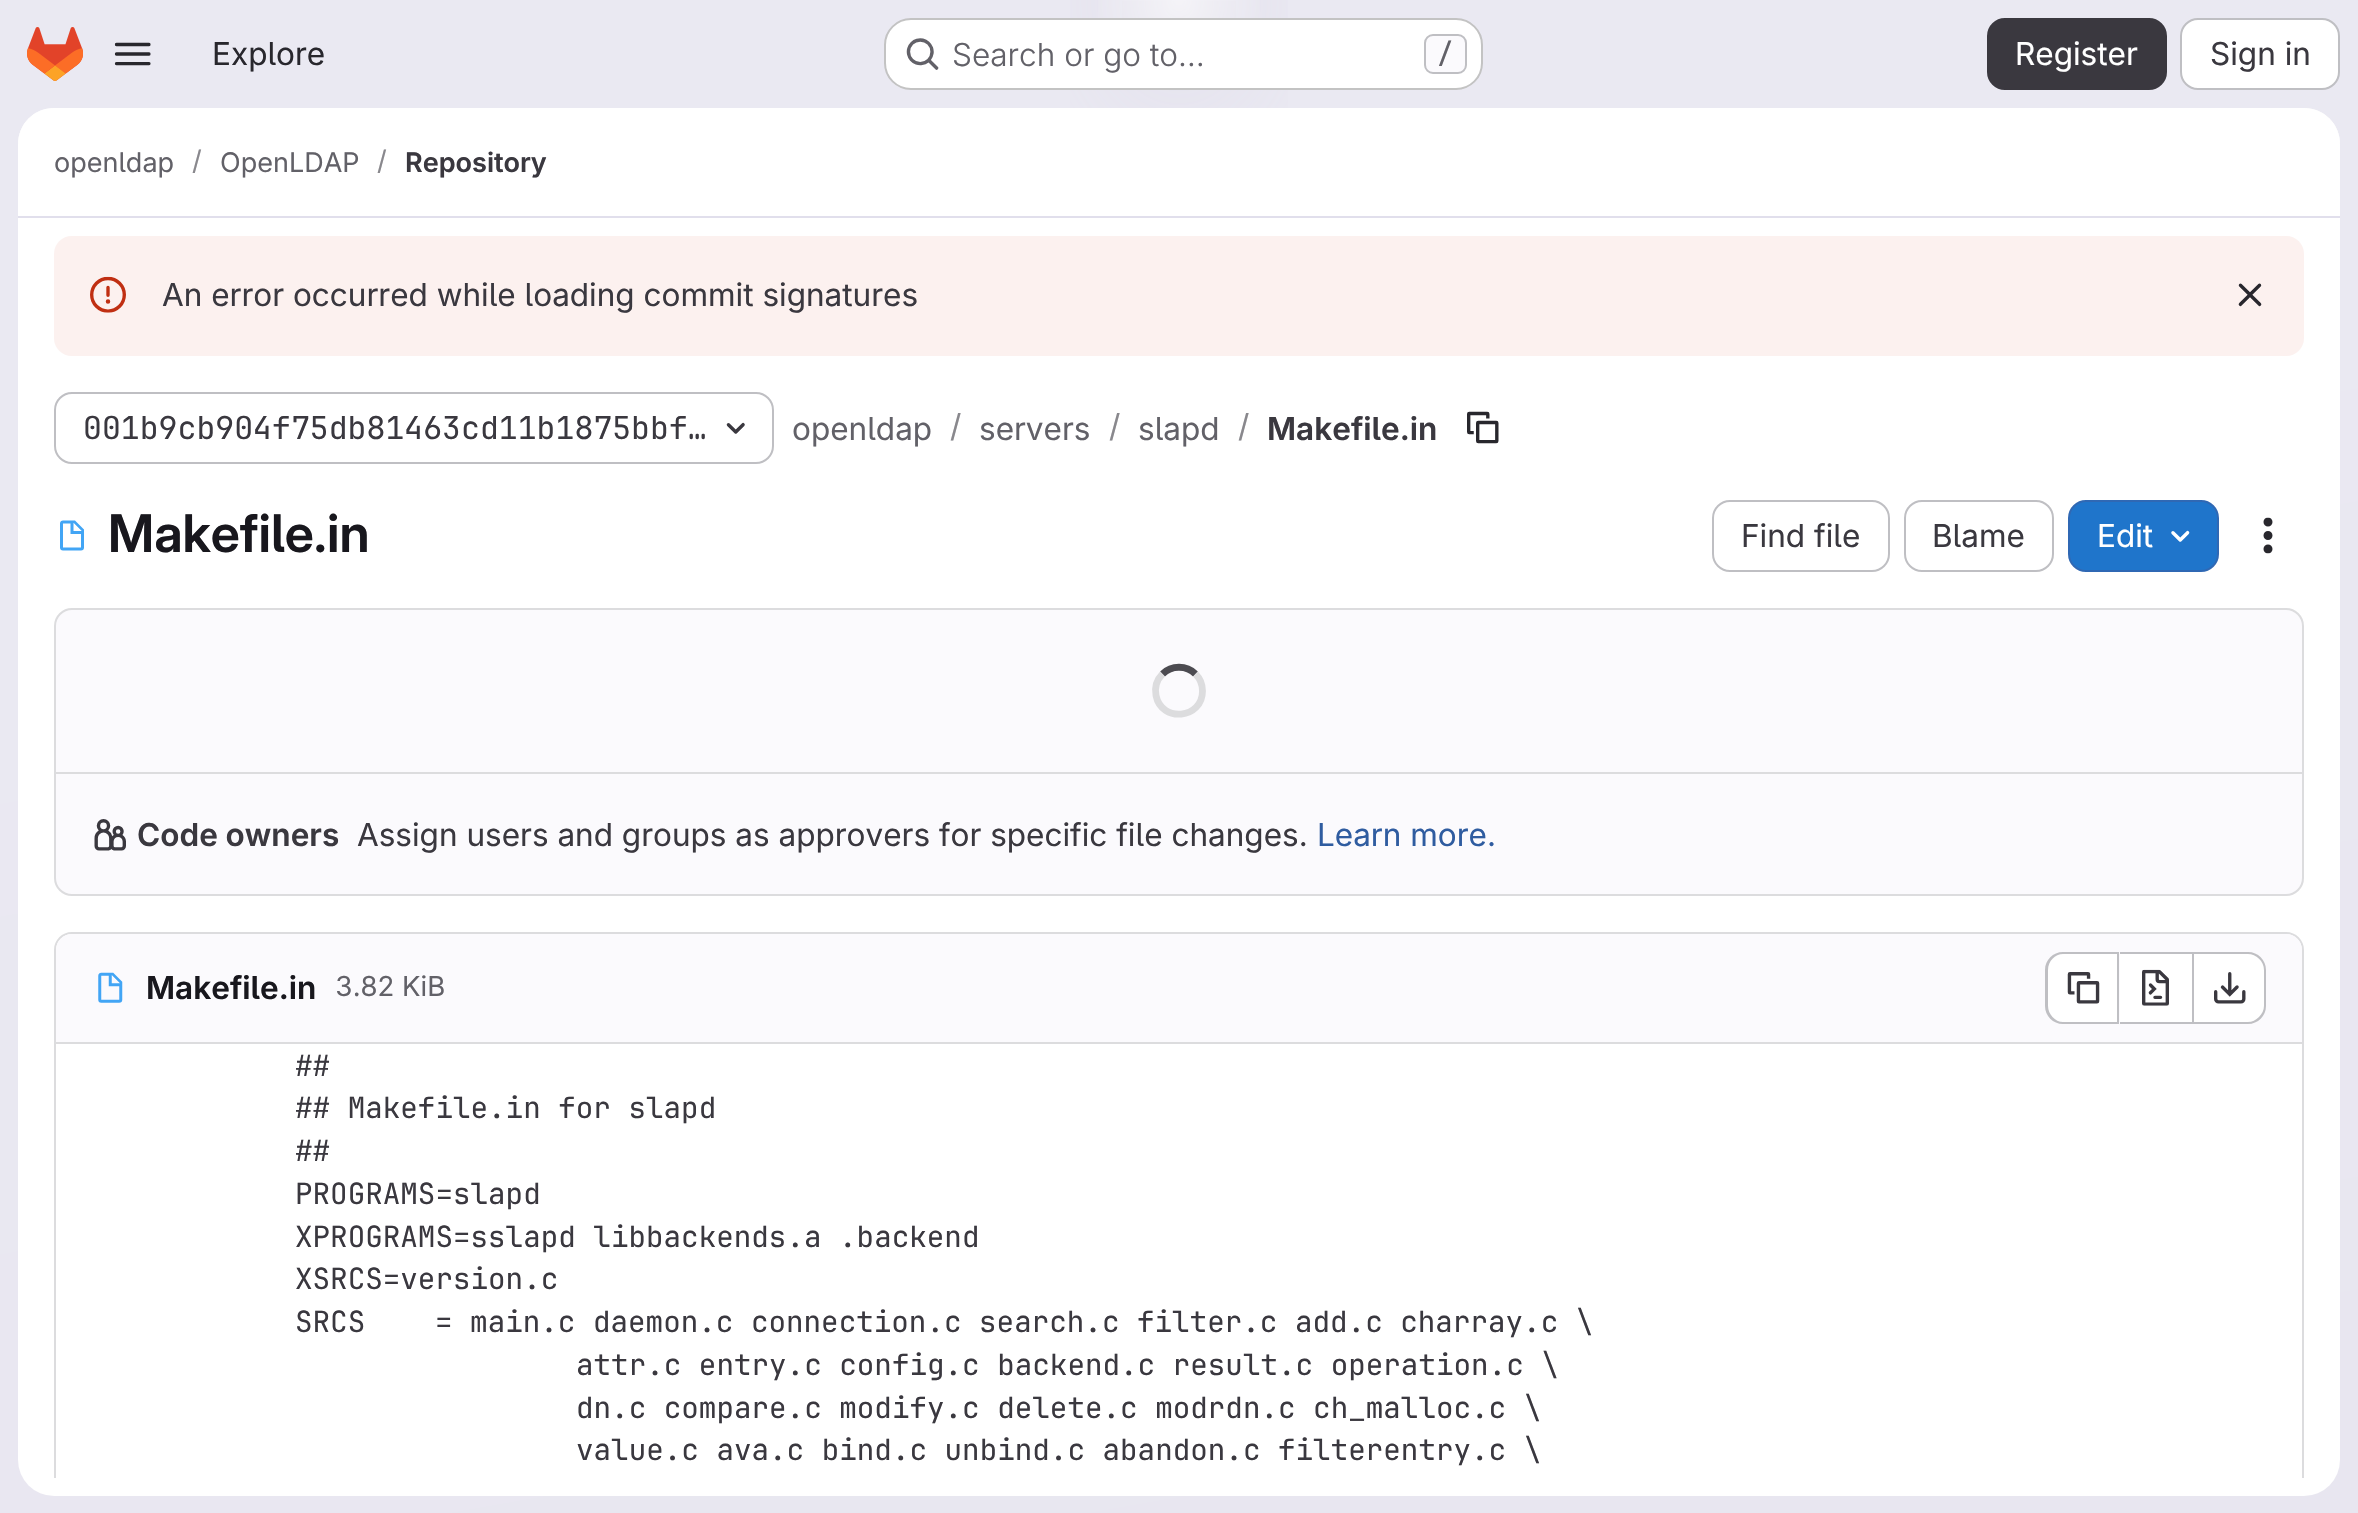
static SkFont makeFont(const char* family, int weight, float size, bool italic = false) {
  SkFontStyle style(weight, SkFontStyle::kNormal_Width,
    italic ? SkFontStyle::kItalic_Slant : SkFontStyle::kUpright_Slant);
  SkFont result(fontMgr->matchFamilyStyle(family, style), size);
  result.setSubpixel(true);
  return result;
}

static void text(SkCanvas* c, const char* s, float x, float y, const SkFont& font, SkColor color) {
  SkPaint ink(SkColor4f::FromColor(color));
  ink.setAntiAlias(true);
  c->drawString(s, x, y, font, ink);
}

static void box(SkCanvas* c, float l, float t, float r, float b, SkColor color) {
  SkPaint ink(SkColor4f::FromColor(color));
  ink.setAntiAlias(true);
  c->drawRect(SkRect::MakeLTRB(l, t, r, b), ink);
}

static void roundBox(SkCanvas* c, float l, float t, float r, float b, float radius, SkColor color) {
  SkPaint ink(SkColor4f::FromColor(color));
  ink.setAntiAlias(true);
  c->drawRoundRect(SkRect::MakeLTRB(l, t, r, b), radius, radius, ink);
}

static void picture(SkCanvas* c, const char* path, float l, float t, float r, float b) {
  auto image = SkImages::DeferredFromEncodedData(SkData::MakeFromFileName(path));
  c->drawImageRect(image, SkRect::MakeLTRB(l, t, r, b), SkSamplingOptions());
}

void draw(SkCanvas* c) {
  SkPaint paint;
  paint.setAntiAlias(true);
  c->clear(0xffffffff);
  {
    const SkColor colors[] = {0xffe8e6f0, 0xffeae9f2};
    const float stops[] = {0, 0.7f};
    const SkPoint ends[] = {{1344, 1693}, {1014, -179}};
    paint.setShader(SkGradientShader::MakeLinear(ends, colors, stops, 2, SkTileMode::kClamp));
    paint.setAlpha(255);
  }
  c->drawRect(SkRect::MakeLTRB(0, 0, 2358, 1513), paint);
  {
    const SkColor colors[] = {0xffe4e2ed, 0x00e4e2ed};
    const float stops[] = {0, 0.13f};
    SkMatrix m = SkMatrix::Translate(1179, 0).preScale(1179, 1514);
    paint.setShader(SkGradientShader::MakeRadial({0, 0}, 1, colors, stops, 2, SkTileMode::kClamp, 0, &m));
    paint.setAlpha(255);
  }
  c->drawRect(SkRect::MakeLTRB(1070, 0, 1288, 108), paint);
  {
    const SkColor colors[] = {0xffe4e2ec, 0x00e4e2ec};
    const float stops[] = {0, 0.1f};
    SkMatrix m = SkMatrix::Translate(1179, 0).preScale(1179, 1514);
    paint.setShader(SkGradientShader::MakeRadial({0, 0}, 1, colors, stops, 2, SkTileMode::kClamp, 0, &m));
    paint.setAlpha(255);
  }
  c->drawRect(SkRect::MakeLTRB(1122, 1, 1236, 77), paint);
  {
    const SkColor colors[] = {0x99ffffff, 0x00ffffff};
    const float stops[] = {0, 0.05f};
    paint.setShader(SkGradientShader::MakeRadial({1179, 0}, 1919, colors, stops, 2, SkTileMode::kClamp));
    paint.setAlpha(255);
  }
  c->drawRect(SkRect::MakeLTRB(1098, 0, 1260, 18), paint);
  picture(c, "img_01.png", 27, 27, 83, 81);
  picture(c, "img_02.png", 114, 42, 151, 66);
  SkFont face1 = makeFont("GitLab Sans", 400, 31.5f);
  text(c, "Explore", 212, 65, face1, 0xff28272d);
  roundBox(c, 884, 18, 1483, 90, 27, 0xffffffff);
  paint.setStyle(SkPaint::kStroke_Style);
  paint.setStrokeWidth(2);
  paint.setShader(nullptr);
  paint.setColor(0x3d050506);
  c->drawRoundRect(SkRect::MakeLTRB(885, 19, 1482, 89), 26, 26, paint);
  picture(c, "img_03.png", 906, 38, 939, 70);
  SkFont face2 = makeFont("GitLab Sans", 300, 31.5f);
  text(c, "Search or go to…", 952, 66, face2, 0xff626168);
  paint.setStyle(SkPaint::kFill_Style);
  paint.setColor(0xfffbfafd);
  c->drawRoundRect(SkRect::MakeLTRB(1425, 35, 1466, 73), 8, 8, paint);
  paint.setStyle(SkPaint::kStroke_Style);
  paint.setColor(0xffbfbfc3);
  c->drawRoundRect(SkRect::MakeLTRB(1425, 35, 1466, 73), 8, 8, paint);
  SkFont face3 = makeFont("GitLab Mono", 500, 27);
  text(c, "/", 1437, 63, face3, 0xff626168);
  paint.setStyle(SkPaint::kFill_Style);
  paint.setColor(0xff3a383f);
  c->drawRoundRect(SkRect::MakeLTRB(1988, 19, 2166, 89), 17, 17, paint);
  paint.setStyle(SkPaint::kStroke_Style);
  c->drawRoundRect(SkRect::MakeLTRB(1988, 19, 2166, 89), 17, 17, paint);
  text(c, "Register", 2015, 65, face1, 0xffffffff);
  paint.setStyle(SkPaint::kFill_Style);
  paint.setColor(0xffffffff);
  c->drawRoundRect(SkRect::MakeLTRB(2181, 19, 2339, 89), 17, 17, paint);
  paint.setStyle(SkPaint::kStroke_Style);
  paint.setColor(0xffbfbfc3);
  c->drawRoundRect(SkRect::MakeLTRB(2181, 19, 2339, 89), 17, 17, paint);
  text(c, "Sign in", 2210, 65, face1, 0xff3a383f);
  roundBox(c, 18, 108, 2340, 1496, 36, 0xffffffff);
  paint.setStyle(SkPaint::kFill_Style);
  paint.setColor(0xffffffff);
  c->drawPath(SkPathBuilder().moveTo(54, 108).lineTo(2304, 108).cubicTo(2324, 108, 2340, 124, 2340, 144).lineTo(2340, 218).lineTo(18, 218).lineTo(18, 144).cubicTo(18, 124, 34, 108, 54, 108).close().detach(), paint);
  box(c, 18, 216, 2340, 218, 0xffe1dfec);
  SkFont face4 = makeFont("GitLab Sans", 400, 27);
  text(c, "openldap", 54, 172, face4, 0xff626168);
  text(c, "/", 192, 170, face4, 0xff89888d);
  text(c, "OpenLDAP", 220, 172, face4, 0xff626168);
  text(c, "/", 377, 170, face4, 0xff89888d);
  SkFont face5 = makeFont("GitLab Sans", 600, 27);
  text(c, "Repository", 405, 172, face5, 0xff3a383f);
  roundBox(c, 54, 236, 2304, 356, 18, 0xfffcf1ef);
  picture(c, "img_04.png", 90, 276, 126, 313);
  text(c, "An error occurred while loading commit signatures", 162, 306, face1, 0xff3a383f);
  picture(c, "img_05.png", 2238, 283, 2262, 307);
  paint.setStyle(SkPaint::kStroke_Style);
  paint.setColor(0xffbfbfc3);
  c->drawRoundRect(SkRect::MakeLTRB(55, 393, 773, 463), 17, 17, paint);
  SkFont face6 = makeFont("GitLab Mono", 400, 31.5f);
  text(c, "001b9cb904f75db81463cd11b1875bbf…", 83, 439, face6, 0xff3a383f);
  picture(c, "img_06.png", 726, 422, 745, 434);
  text(c, "openldap", 792, 440, face1, 0xff626168);
  text(c, "/", 950, 437, face1, 0xff89888d);
  text(c, "servers", 979, 440, face1, 0xff626168);
  text(c, "/", 1109, 437, face1, 0xff89888d);
  text(c, "slapd", 1138, 440, face1, 0xff626168);
  text(c, "/", 1238, 437, face1, 0xff89888d);
  SkFont face7 = makeFont("GitLab Sans", 600, 31.5f);
  text(c, "Makefile.in", 1267, 440, face7, 0xff3a383f);
  picture(c, "img_07.png", 1467, 411, 1499, 444);
  picture(c, "img_08.png", 60, 520, 84, 551);
  SkFont face8 = makeFont("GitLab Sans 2", 600, 51.75f);
  text(c, "Makefile.in", 108, 552, face8, 0xff18171d);
  c->drawRoundRect(SkRect::MakeLTRB(1713, 501, 1889, 571), 17, 17, paint);
  text(c, "Find file", 1741, 547, face1, 0xff3a383f);
  c->drawRoundRect(SkRect::MakeLTRB(1905, 501, 2053, 571), 17, 17, paint);
  text(c, "Blame", 1932, 547, face1, 0xff3a383f);
  paint.setStyle(SkPaint::kFill_Style);
  paint.setColor(0xff1f75cb);
  c->drawRoundRect(SkRect::MakeLTRB(2069, 501, 2218, 571), 17, 17, paint);
  paint.setStyle(SkPaint::kStroke_Style);
  paint.setColor(0xff2f68b4);
  c->drawRoundRect(SkRect::MakeLTRB(2069, 501, 2218, 571), 17, 17, paint);
  text(c, "Edit", 2097, 547, face1, 0xffffffff);
  picture(c, "img_09.png", 2171, 530, 2190, 542);
  picture(c, "img_10.png", 2263, 517, 2273, 554);
  paint.setStyle(SkPaint::kFill_Style);
  paint.setColor(0xfffbfafd);
  c->drawRoundRect(SkRect::MakeLTRB(55, 609, 2303, 895), 17, 17, paint);
  paint.setStyle(SkPaint::kStroke_Style);
  paint.setColor(0xffdcdcde);
  c->drawRoundRect(SkRect::MakeLTRB(55, 609, 2303, 895), 17, 17, paint);
  paint.setStrokeWidth(6.8f);
  paint.setColor(0xff4c4b51);
  c->drawPath(SkPathBuilder().moveTo(1162.5f, 674).cubicTo(1171.5f, 665, 1186.5f, 665, 1195.5f, 674).detach(), paint);
  paint.setColor(0xffdcdcde);
  c->drawPath(SkPathBuilder().moveTo(1195.5f, 674).cubicTo(1200, 678.5f, 1202.5f, 684.5f, 1202.5f, 691).cubicTo(1202.5f, 719, 1161.5f, 723, 1156, 695.5f).cubicTo(1154.5f, 687.5f, 1157, 679.5f, 1162.5f, 674).detach(), paint);
  box(c, 56, 772, 2302, 774, 0xffdcdcde);
  picture(c, "img_11.png", 94, 819, 126, 851);
  text(c, "Code owners", 137, 846, face7, 0xff3a383f);
  text(c, "Assign users and groups as approvers for specific file changes.", 357, 846, face1, 0xff3a383f);
  text(c, "Learn more.", 1317, 846, face1, 0xff2f5ca0);
  c->save();
  c->clipRect(SkRect::MakeLTRB(18, 218, 2340, 1478));
  paint.setStyle(SkPaint::kFill_Style);
  c->drawPath(SkPathBuilder().moveTo(72, 932).cubicTo(62, 932, 54, 940, 54, 950).lineTo(54, 1496).lineTo(56, 1496).lineTo(56, 950).cubicTo(56, 941, 63, 934, 72, 934).lineTo(2286, 934).cubicTo(2295, 934, 2302, 941, 2302, 950).lineTo(2302, 1496).lineTo(2304, 1496).lineTo(2304, 950).cubicTo(2304, 940, 2296, 932, 2286, 932).close().detach(), paint);
  c->restore();
  paint.setColor(0xfffbfafd);
  c->drawPath(SkPathBuilder().moveTo(72, 934).lineTo(2286, 934).cubicTo(2295, 934, 2302, 941, 2302, 950).lineTo(2302, 1044).lineTo(56, 1044).lineTo(56, 950).cubicTo(56, 941, 63, 934, 72, 934).close().detach(), paint);
  box(c, 56, 1042, 2302, 1044, 0xffdcdcde);
  picture(c, "img_12.png", 98, 972, 123, 1003);
  text(c, "Makefile.in", 146, 999, face7, 0xff18171d);
  SkFont face9 = makeFont("GitLab Sans", 400, 27.5f);
  text(c, "3.82 KiB", 335, 996, face9, 0xff626168);
  paint.setColor(0xffffffff);
  c->drawPath(SkPathBuilder().moveTo(2064, 954).lineTo(2117, 954).lineTo(2117, 1022).lineTo(2064, 1022).cubicTo(2055, 1022, 2048, 1015, 2048, 1006).lineTo(2048, 970).cubicTo(2048, 961, 2055, 954, 2064, 954).close().detach(), paint);
  paint.setColor(0xffbfbfc3);
  c->drawPath(SkPathBuilder(SkPathFillType::kEvenOdd).moveTo(2063, 952).lineTo(2117, 952).lineTo(2117, 1024).lineTo(2063, 1024).cubicTo(2053, 1024, 2045, 1016, 2045, 1006).lineTo(2045, 970).cubicTo(2045, 960, 2053, 952, 2063, 952).close().moveTo(2063, 954).lineTo(2117, 954).lineTo(2117, 1022).lineTo(2063, 1022).cubicTo(2055, 1022, 2048, 1014, 2048, 1006).lineTo(2048, 970).cubicTo(2048, 961, 2055, 954, 2063, 954).close().detach(), paint);
  picture(c, "img_13.png", 2067, 972, 2100, 1004);
  box(c, 2120, 954, 2192, 1022, 0xffffffff);
  box(c, 2120, 952, 2192, 954, 0xffbfbfc3);
  box(c, 2120, 1022, 2192, 1024, 0xffbfbfc3);
  box(c, 2117, 952, 2119, 1024, 0xffbfbfc3);
  picture(c, "img_14.png", 2142, 969, 2169, 1006);
  paint.setColor(0xffffffff);
  c->drawPath(SkPathBuilder().moveTo(2194, 954).lineTo(2248, 954).cubicTo(2257, 954, 2264, 961, 2264, 970).lineTo(2264, 1006).cubicTo(2264, 1015, 2257, 1022, 2248, 1022).lineTo(2194, 1022).close().detach(), paint);
  paint.setColor(0xffbfbfc3);
  c->drawPath(SkPathBuilder(SkPathFillType::kEvenOdd).moveTo(2194, 952).lineTo(2248, 952).cubicTo(2258, 952, 2266, 960, 2266, 970).lineTo(2266, 1006).cubicTo(2266, 1016, 2258, 1024, 2248, 1024).lineTo(2194, 1024).close().moveTo(2194, 954).lineTo(2248, 954).cubicTo(2256, 954, 2264, 961, 2264, 970).lineTo(2264, 1006).cubicTo(2264, 1014, 2256, 1022, 2248, 1022).lineTo(2194, 1022).close().detach(), paint);
  box(c, 2192, 952, 2194, 1024, 0xffbfbfc3);
  picture(c, "img_15.png", 2214, 972, 2246, 1004);
  SkFont face10 = makeFont("GitLab Mono", 400, 29.25f);
  text(c, "##", 295, 1076, face10, 0xff3a383f);
  text(c, "## Makefile.in for slapd", 295, 1118, face10, 0xff3a383f);
  text(c, "##", 295, 1161, face10, 0xff3a383f);
  text(c, "PROGRAMS=slapd", 295, 1204, face10, 0xff3a383f);
  text(c, "XPROGRAMS=sslapd libbackends.a .backend", 295, 1247, face10, 0xff3a383f);
  text(c, "XSRCS=version.c", 295, 1289, face10, 0xff3a383f);
  text(c, "SRCS", 295, 1332, face10, 0xff3a383f);
  text(c, "= main.c daemon.c connection.c search.c filter.c add.c charray.c \\", 435, 1332, face10, 0xff3a383f);
  text(c, "attr.c entry.c config.c backend.c result.c operation.c \\", 576, 1375, face10, 0xff3a383f);
  text(c, "dn.c compare.c modify.c delete.c modrdn.c ch_malloc.c \\", 576, 1418, face10, 0xff3a383f);
  text(c, "value.c ava.c bind.c unbind.c abandon.c filterentry.c \\", 576, 1460, face10, 0xff3a383f);
}
